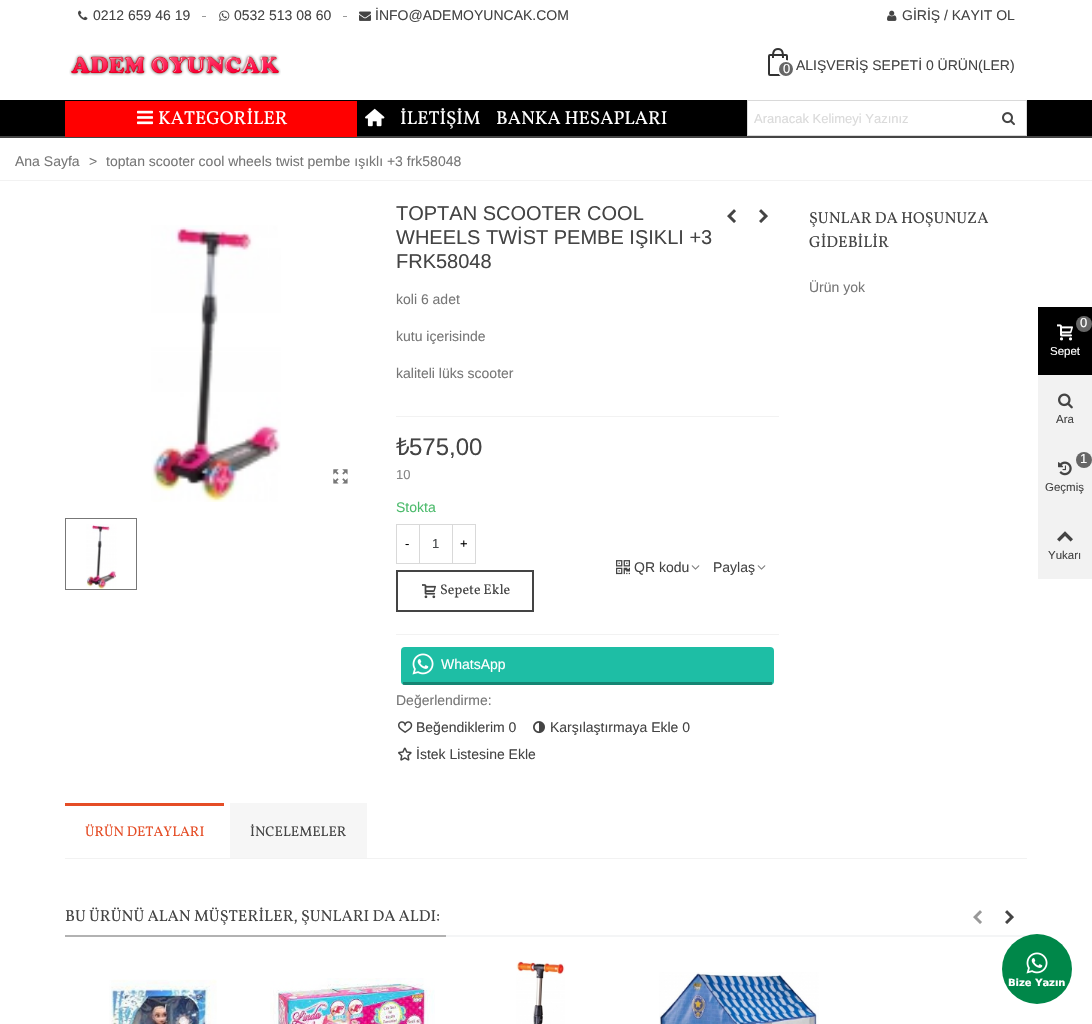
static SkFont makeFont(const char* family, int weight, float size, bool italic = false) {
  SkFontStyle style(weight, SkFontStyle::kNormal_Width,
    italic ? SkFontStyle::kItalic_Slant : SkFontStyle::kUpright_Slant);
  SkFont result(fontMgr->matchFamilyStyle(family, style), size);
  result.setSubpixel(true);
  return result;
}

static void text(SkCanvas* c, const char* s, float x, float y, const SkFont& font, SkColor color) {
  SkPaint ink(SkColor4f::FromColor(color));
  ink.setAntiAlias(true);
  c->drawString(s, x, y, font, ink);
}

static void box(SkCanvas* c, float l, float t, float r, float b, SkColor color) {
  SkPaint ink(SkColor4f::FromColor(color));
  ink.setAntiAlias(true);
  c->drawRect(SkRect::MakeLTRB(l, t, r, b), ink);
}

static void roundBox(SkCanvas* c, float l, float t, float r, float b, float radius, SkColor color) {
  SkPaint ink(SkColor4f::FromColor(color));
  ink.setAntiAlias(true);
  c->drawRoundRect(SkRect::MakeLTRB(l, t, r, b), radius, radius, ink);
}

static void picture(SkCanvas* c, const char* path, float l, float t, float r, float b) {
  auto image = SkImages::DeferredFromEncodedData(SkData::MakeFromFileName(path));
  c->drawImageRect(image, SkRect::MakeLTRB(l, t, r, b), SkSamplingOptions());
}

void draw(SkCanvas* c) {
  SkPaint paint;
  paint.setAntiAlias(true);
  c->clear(0xffffffff);
  picture(c, "img_01.png", 78, 10, 88, 21);
  SkFont face1 = makeFont("Liberation Sans", 400, 14);
  text(c, "0212 659 46 19", 93, 20, face1, 0xff444444);
  box(c, 202, 16, 206, 17, 0xff999999);
  picture(c, "img_02.png", 219, 10, 230, 21);
  text(c, "0532 513 08 60", 234, 20, face1, 0xff444444);
  box(c, 343, 16, 347, 17, 0xff999999);
  picture(c, "img_03.png", 359, 11, 371, 21);
  text(c, "İNFO@ADEMOYUNCAK.COM", 375, 20, face1, 0xff444444);
  picture(c, "img_04.png", 887, 10, 897, 21);
  text(c, "GİRİŞ / KAYIT OL", 902, 20, face1, 0xff444444);
  picture(c, "img_05.png", 69, 54, 281, 76);
  paint.setStyle(SkPaint::kStroke_Style);
  paint.setStrokeWidth(2);
  paint.setColor(0xff333333);
  c->drawRoundRect(SkRect::MakeLTRB(769, 55, 787, 75), 1, 1, paint);
  paint.setStyle(SkPaint::kFill_Style);
  c->drawPath(SkPathBuilder(SkPathFillType::kEvenOdd).moveTo(778, 48).cubicTo(784, 48, 784, 53.5f, 784, 58).lineTo(772, 58).cubicTo(772, 53.5f, 772, 48, 778, 48).close().moveTo(778, 50).cubicTo(782.5f, 50, 782, 55, 782, 58).lineTo(774, 58).cubicTo(774, 55, 773.5f, 50, 778, 50).close().detach(), paint);
  paint.setColor(0xff666666);
  c->drawCircle(786, 69, 8, paint);
  paint.setStyle(SkPaint::kStroke_Style);
  paint.setColor(0xffffffff);
  c->drawCircle(786, 69, 8, paint);
  SkFont face2 = makeFont("Liberation Sans", 400, 13);
  text(c, "0", 783, 73, face2, 0xffffffff);
  text(c, "ALIŞVERİŞ SEPETİ 0 ÜRÜN(LER)", 796, 70, face1, 0xff444444);
  box(c, 0, 100, 1092, 136, 0xff000000);
  box(c, 0, 136, 1092, 138, 0xff444444);
  box(c, 65, 101, 357, 137, 0xffff0000);
  picture(c, "img_06.png", 137, 110, 153, 125);
  SkFont face3 = makeFont("Vollkorn", 400, 18.75f);
  text(c, "KATEGORİLER", 158, 124, face3, 0xffffffff);
  picture(c, "img_07.png", 365, 108, 385, 127);
  text(c, "İLETİŞİM", 400, 124, face3, 0xffffffff);
  text(c, "BANKA HESAPLARI", 496, 124, face3, 0xffffffff);
  paint.setStyle(SkPaint::kFill_Style);
  c->drawRect(SkRect::MakeLTRB(747.5f, 100.5f, 1026.5f, 135.5f), paint);
  paint.setStyle(SkPaint::kStroke_Style);
  paint.setStrokeWidth(1);
  paint.setColor(0xffd9d9d9);
  c->drawRect(SkRect::MakeLTRB(747.5f, 100.5f, 1026.5f, 135.5f), paint);
  text(c, "Aranacak Kelimeyi Yazınız", 754, 123, face2, 0xffdadada);
  picture(c, "img_08.png", 1002, 112, 1015, 126);
  box(c, 0, 180, 1092, 181, 0xfff2f2f2);
  text(c, "Ana Sayfa", 15, 166, face1, 0xff777777);
  text(c, ">", 89, 166, face1, 0xff777777);
  text(c, "toptan scooter cool wheels twist pembe ışıklı +3 frk58048", 106, 166, face1, 0xff777777);
  picture(c, "img_09.png", 151, 225, 281, 502);
  picture(c, "img_10.png", 333, 469, 348, 484);
  paint.setColor(0xff777777);
  c->drawRect(SkRect::MakeLTRB(65.5f, 518.5f, 136.5f, 589.5f), paint);
  picture(c, "img_11.png", 86, 524, 117, 589);
  SkFont face4 = makeFont("Liberation Sans", 400, 20);
  text(c, "TOPTAN SCOOTER COOL", 396, 220, face4, 0xff444444);
  text(c, "WHEELS TWİST PEMBE IŞIKLI +3", 396, 244, face4, 0xff444444);
  text(c, "FRK58048", 396, 268, face4, 0xff444444);
  picture(c, "img_12.png", 727, 209, 736, 223);
  picture(c, "img_13.png", 759, 209, 768, 223);
  text(c, "koli 6 adet", 396, 304, face1, 0xff777777);
  text(c, "kutu içerisinde", 396, 341, face1, 0xff777777);
  text(c, "kaliteli lüks scooter", 396, 378, face1, 0xff777777);
  box(c, 396, 416, 779, 417, 0xfff2f2f2);
  SkFont face5 = makeFont("Noto Sans", 400, 24);
  text(c, "₺", 396, 455, face5, 0xff444444);
  SkFont face6 = makeFont("Liberation Sans", 400, 24);
  text(c, "575,00", 409, 455, face6, 0xff444444);
  text(c, "10", 396, 479, face2, 0xff878787);
  text(c, "Stokta", 396, 512, face1, 0xff4cbb6c);
  paint.setColor(0xffd9d9d9);
  c->drawRect(SkRect::MakeLTRB(396.5f, 524.5f, 419.5f, 563.5f), paint);
  text(c, "-", 405, 548, face2, 0xff000000);
  c->drawRect(SkRect::MakeLTRB(419.5f, 524.5f, 452.5f, 563.5f), paint);
  text(c, "1", 432, 548, face2, 0xff464a4c);
  c->drawRect(SkRect::MakeLTRB(452.5f, 524.5f, 475.5f, 563.5f), paint);
  text(c, "+", 460, 548, face2, 0xff000000);
  paint.setStrokeWidth(2);
  paint.setColor(0xff444444);
  c->drawRect(SkRect::MakeLTRB(397, 571, 533, 611), paint);
  picture(c, "img_14.png", 422, 584, 436, 599);
  SkFont face7 = makeFont("Vollkorn", 400, 14);
  text(c, "Sepete Ekle", 440, 594, face7, 0xff444444);
  picture(c, "img_15.png", 616, 560, 630, 575);
  text(c, "QR kodu", 634, 572, face1, 0xff444444);
  picture(c, "img_16.png", 691, 565, 700, 570);
  text(c, "Paylaş", 713, 572, face1, 0xff444444);
  picture(c, "img_16.png", 757, 565, 766, 570);
  box(c, 396, 634, 779, 635, 0xfff2f2f2);
  roundBox(c, 401, 647, 774, 685, 4, 0xff1ebea5);
  box(c, 403, 682, 772, 685, 0x4d000000);
  picture(c, "img_17.png", 412, 653, 434, 675);
  text(c, "WhatsApp", 441, 669, face1, 0xffffffff);
  text(c, "Değerlendirme:", 396, 705, face1, 0xff777777);
  picture(c, "img_18.png", 398, 721, 413, 733);
  text(c, "Beğendiklerim 0", 416, 732, face1, 0xff444444);
  picture(c, "img_19.png", 533, 721, 545, 734);
  text(c, "Karşılaştırmaya Ekle 0", 550, 732, face1, 0xff444444);
  picture(c, "img_20.png", 398, 747, 412, 761);
  text(c, "İstek Listesine Ekle", 416, 759, face1, 0xff444444);
  SkFont face8 = makeFont("Vollkorn", 400, 16);
  text(c, "ŞUNLAR DA HOŞUNUZA", 809, 223, face8, 0xff444444);
  text(c, "GİDEBİLİR", 809, 247, face8, 0xff444444);
  text(c, "Ürün yok", 809, 292, face1, 0xff777777);
  box(c, 65, 858, 1027, 859, 0xfff2f2f2);
  box(c, 65, 803, 224, 806, 0xffe54d26);
  text(c, "ÜRÜN DETAYLARI", 85, 836, face7, 0xffe54d26);
  box(c, 230, 803, 367, 858, 0xfff6f6f6);
  text(c, "İNCELEMELER", 250, 836, face7, 0xff444444);
  box(c, 446, 935, 1027, 937, 0xfff4f5f6);
  box(c, 65, 935, 446, 937, 0xffb2b2b2);
  text(c, "BU ÜRÜNÜ ALAN MÜŞTERİLER, ŞUNLARI DA ALDI:", 65, 921, face8, 0xff444444);
  picture(c, "img_21.png", 973, 910, 982, 924);
  picture(c, "img_13.png", 1005, 910, 1014, 924);
  picture(c, "img_22.png", 109, 979, 217, 1024);
  picture(c, "img_23.png", 270, 978, 435, 1024);
  picture(c, "img_24.png", 516, 960, 565, 1024);
  picture(c, "img_25.png", 659, 972, 819, 1024);
  box(c, 1038, 307, 1092, 375, 0xff000000);
  paint.setStyle(SkPaint::kFill_Style);
  paint.setColor(0xff666666);
  c->drawCircle(1084, 324, 8, paint);
  text(c, "0", 1080, 327, face2, 0xffffffff);
  picture(c, "img_26.png", 1057, 324, 1073, 341);
  SkFont face9 = makeFont("Liberation Sans", 400, 11.5f);
  text(c, "Sepet", 1050, 355, face9, 0xffffffff);
  box(c, 1038, 375, 1092, 579, 0xfff2f2f2);
  picture(c, "img_27.png", 1058, 393, 1073, 409);
  text(c, "Ara", 1056, 423, face9, 0xff444444);
  c->drawCircle(1084, 460, 8, paint);
  text(c, "1", 1080, 463, face2, 0xffffffff);
  picture(c, "img_28.png", 1058, 461, 1072, 476);
  text(c, "Geçmiş", 1045, 491, face9, 0xff444444);
  picture(c, "img_29.png", 1057, 531, 1073, 542);
  text(c, "Yukarı", 1048, 559, face9, 0xff444444);
  paint.setColor(0xff008749);
  c->drawCircle(1037, 969, 35, paint);
  picture(c, "img_30.png", 1026, 952, 1048, 974);
  SkFont face10 = makeFont("DejaVu Sans", 700, 10);
  text(c, "Bize Yazın", 1008, 986, face10, 0xffffffff);
}
